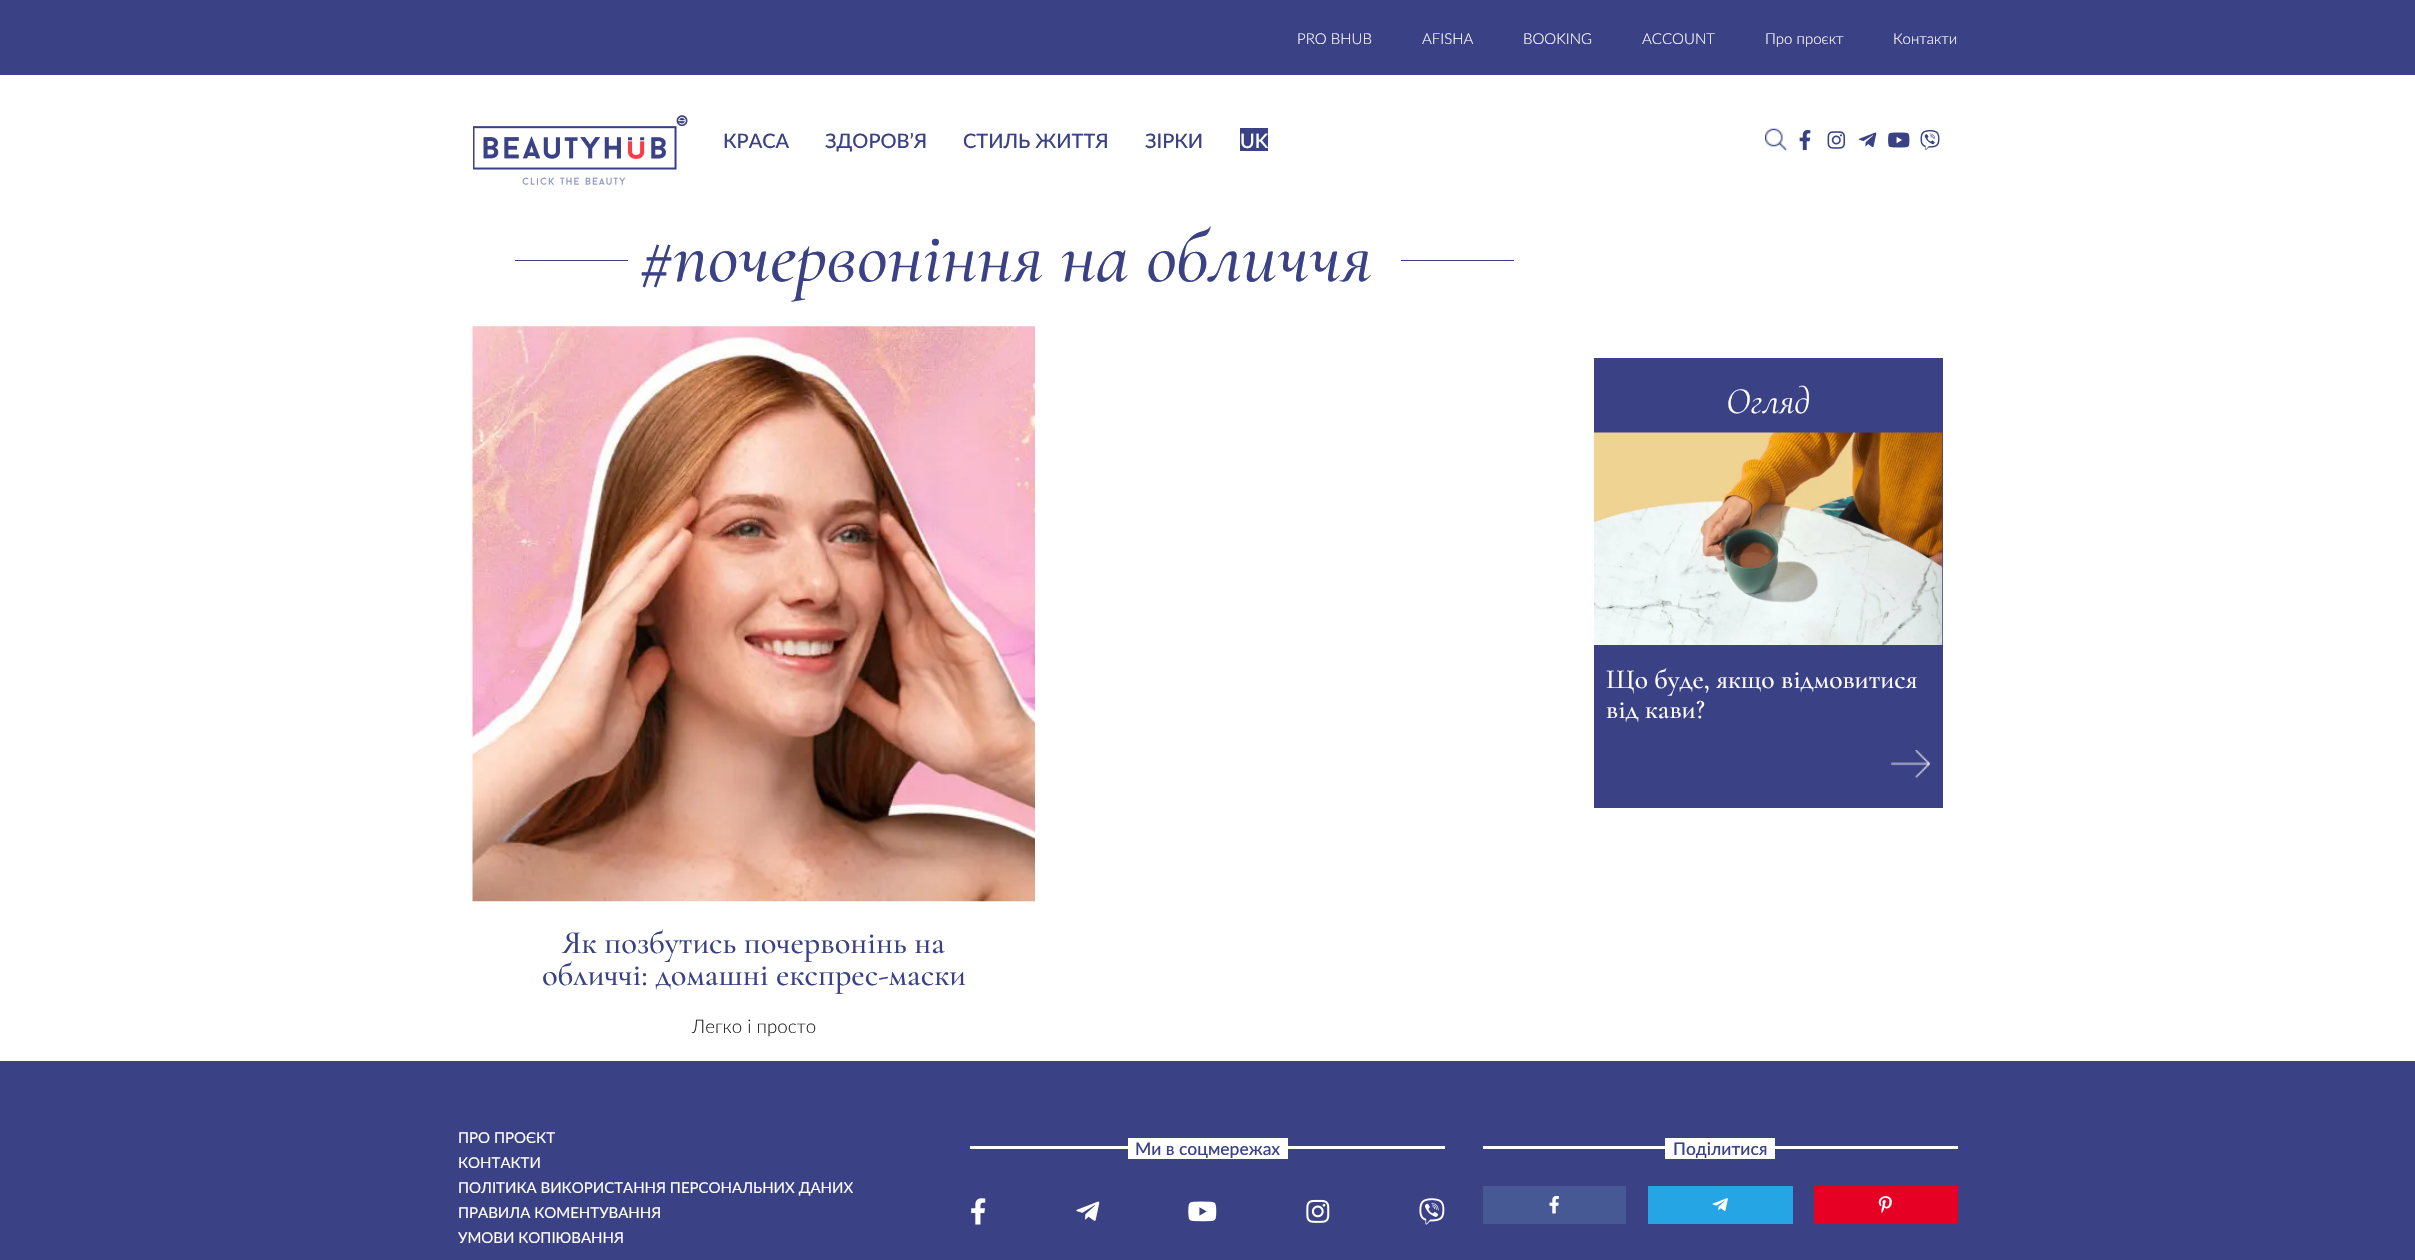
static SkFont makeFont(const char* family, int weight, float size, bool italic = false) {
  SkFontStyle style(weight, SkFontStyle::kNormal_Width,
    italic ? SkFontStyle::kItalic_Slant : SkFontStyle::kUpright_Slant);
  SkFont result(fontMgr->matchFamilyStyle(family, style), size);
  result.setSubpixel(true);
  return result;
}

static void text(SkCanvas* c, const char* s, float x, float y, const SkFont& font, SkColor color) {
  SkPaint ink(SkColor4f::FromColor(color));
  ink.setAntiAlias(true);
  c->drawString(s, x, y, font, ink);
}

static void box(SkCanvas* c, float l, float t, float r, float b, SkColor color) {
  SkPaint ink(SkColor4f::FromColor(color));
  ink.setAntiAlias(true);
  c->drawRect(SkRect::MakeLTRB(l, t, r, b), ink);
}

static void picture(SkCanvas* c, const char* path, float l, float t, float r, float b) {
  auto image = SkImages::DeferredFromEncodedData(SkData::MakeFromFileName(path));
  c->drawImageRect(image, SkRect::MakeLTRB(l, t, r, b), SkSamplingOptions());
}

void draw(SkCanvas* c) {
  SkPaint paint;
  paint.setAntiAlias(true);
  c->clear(0xffffffff);
  box(c, 0, 0, 2415, 75, 0xff3a4185);
  SkFont face1 = makeFont("Lato", 300, 15);
  text(c, "PRO BHUB", 1297, 44, face1, 0xffffffff);
  text(c, "AFISHA", 1422, 44, face1, 0xffffffff);
  text(c, "BOOKING", 1523, 44, face1, 0xffffffff);
  text(c, "ACCOUNT", 1642, 44, face1, 0xffffffff);
  text(c, "Про проєкт", 1765, 44, face1, 0xffffffff);
  text(c, "Контакти", 1893, 44, face1, 0xffffffff);
  picture(c, "img_01.png", 473, 115, 688, 185);
  SkFont face2 = makeFont("Lato", 500, 20);
  text(c, "КРАСА", 723, 148, face2, 0xff3a4185);
  text(c, "ЗДОРОВ’Я", 825, 148, face2, 0xff3a4185);
  text(c, "СТИЛЬ ЖИТТЯ", 963, 148, face2, 0xff3a4185);
  text(c, "ЗІРКИ", 1145, 148, face2, 0xff3a4185);
  box(c, 1240, 128, 1268, 151, 0xff3a4185);
  text(c, "UK", 1240, 148, face2, 0xffffffff);
  picture(c, "img_02.png", 1765, 128, 1787, 151);
  picture(c, "img_03.png", 1799, 130, 1811, 150);
  picture(c, "img_04.png", 1827, 131, 1846, 149);
  picture(c, "img_05.png", 1858, 132, 1877, 148);
  picture(c, "img_06.png", 1888, 132, 1910, 148);
  picture(c, "img_07.png", 1920, 130, 1940, 150);
  box(c, 515, 260, 628, 261, 0xff3a4185);
  SkFont face3 = makeFont("Cormorant Garamond", 500, 75, true);
  text(c, "#почервоніння на обличчя", 640, 281, face3, 0xff3a4185);
  box(c, 1401, 260, 1514, 261, 0xff3a4185);
  picture(c, "img_08.png", 472, 326, 1035, 902);
  SkFont face4 = makeFont("Cormorant Garamond", 500, 32.5f);
  text(c, "Як позбутись почервонінь на", 562, 953, face4, 0xff3a4185);
  text(c, "обличчі: домашні експрес-маски", 542, 985, face4, 0xff3a4185);
  SkFont face5 = makeFont("Lato", 300, 18.75f);
  text(c, "Легко і просто", 692, 1033, face5, 0xff1f1f1f);
  box(c, 1594, 358, 1943, 808, 0xff3a4185);
  SkFont face6 = makeFont("Cormorant Garamond", 400, 37.5f, true);
  text(c, "Огляд", 1726, 413, face6, 0xffffffff);
  picture(c, "img_09.png", 1593, 432, 1943, 645);
  SkFont face7 = makeFont("Cormorant Garamond", 500, 27.5f);
  text(c, "Що буде, якщо відмовитися", 1606, 688, face7, 0xffffffff);
  text(c, "від кави?", 1606, 718, face7, 0xffffffff);
  picture(c, "img_10.png", 1891, 750, 1930, 778);
  box(c, 0, 1061, 2415, 1260, 0xff3a4185);
  SkFont face8 = makeFont("Lato", 400, 15);
  text(c, "ПРО ПРОЄКТ", 458, 1143, face8, 0xffffffff);
  text(c, "КОНТАКТИ", 458, 1168, face8, 0xffffffff);
  text(c, "ПОЛІТИКА ВИКОРИСТАННЯ ПЕРСОНАЛЬНИХ ДАНИХ", 458, 1193, face8, 0xffffffff);
  text(c, "ПРАВИЛА КОМЕНТУВАННЯ", 458, 1218, face8, 0xffffffff);
  text(c, "УМОВИ КОПІЮВАННЯ", 458, 1243, face8, 0xffffffff);
  box(c, 970, 1146, 1445, 1149, 0xffffffff);
  box(c, 1128, 1138, 1288, 1159, 0xffffffff);
  SkFont face9 = makeFont("Lato", 500, 17.5f);
  text(c, "Ми в соцмережах", 1135, 1155, face9, 0xff3a4185);
  picture(c, "img_11.png", 971, 1198, 986, 1225);
  picture(c, "img_12.png", 1076, 1201, 1100, 1221);
  picture(c, "img_13.png", 1188, 1201, 1217, 1222);
  picture(c, "img_14.png", 1306, 1199, 1330, 1223);
  picture(c, "img_15.png", 1419, 1198, 1445, 1225);
  box(c, 1483, 1146, 1958, 1149, 0xffffffff);
  box(c, 1665, 1138, 1775, 1159, 0xffffffff);
  text(c, "Поділитися", 1673, 1155, face9, 0xff3a4185);
  box(c, 1483, 1186, 1626, 1224, 0xff475995);
  picture(c, "img_16.png", 1549, 1195, 1559, 1214);
  box(c, 1648, 1186, 1793, 1224, 0xff26a5e4);
  picture(c, "img_17.png", 1712, 1198, 1728, 1211);
  box(c, 1814, 1186, 1958, 1224, 0xffe60023);
  picture(c, "img_18.png", 1878, 1196, 1892, 1214);
}
